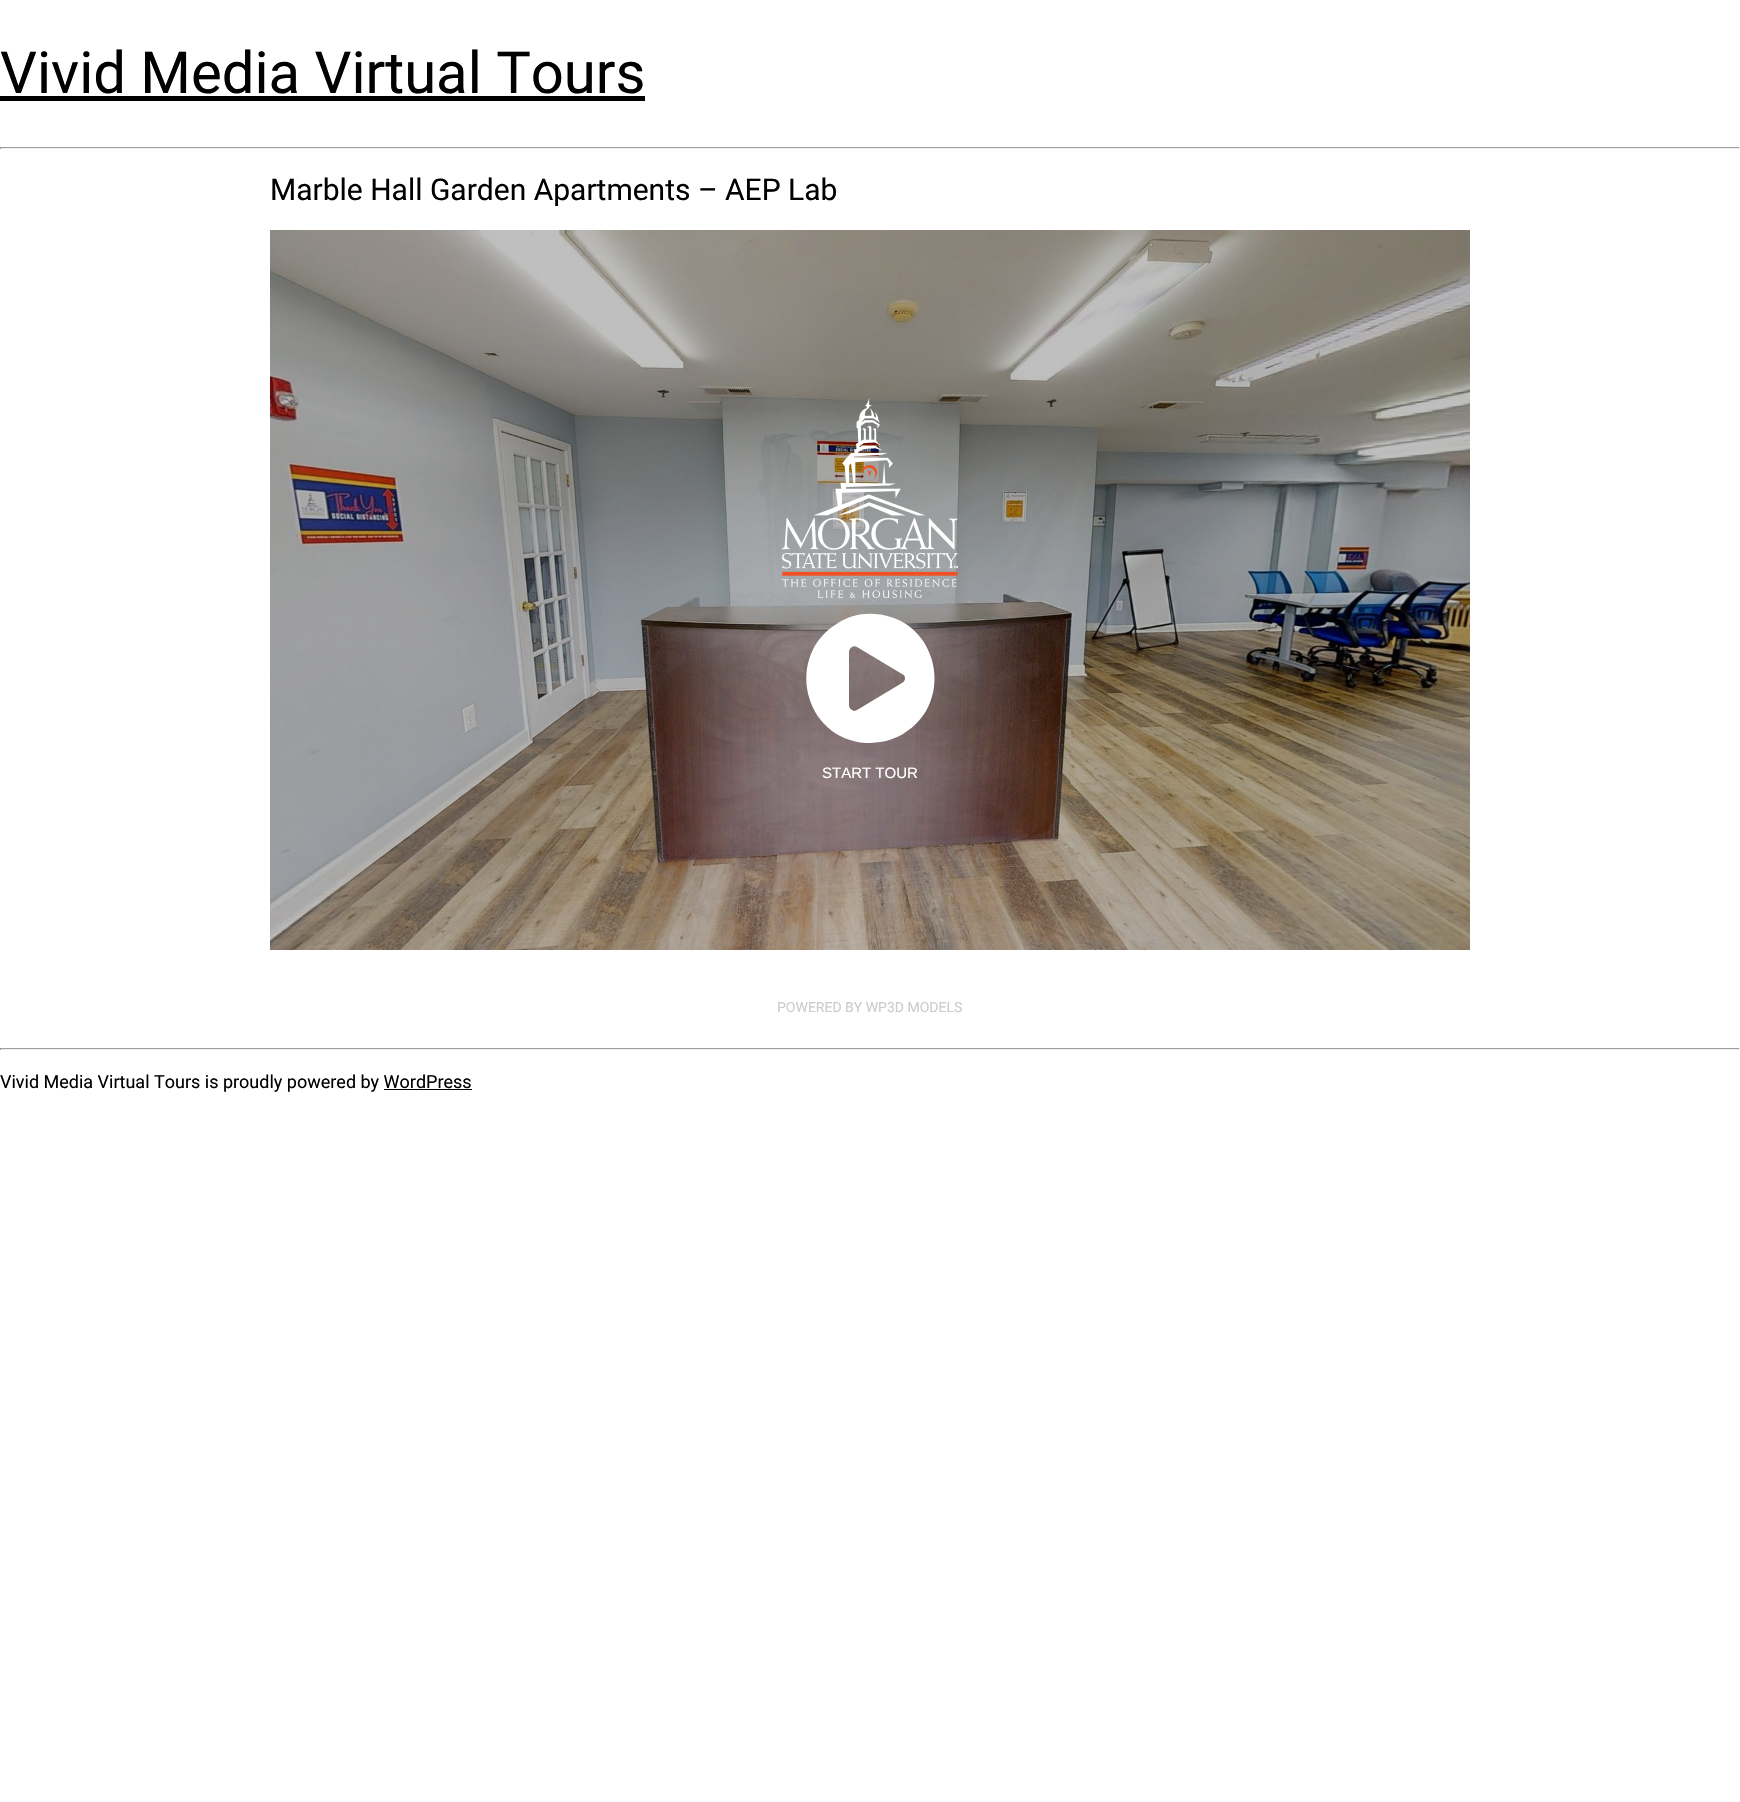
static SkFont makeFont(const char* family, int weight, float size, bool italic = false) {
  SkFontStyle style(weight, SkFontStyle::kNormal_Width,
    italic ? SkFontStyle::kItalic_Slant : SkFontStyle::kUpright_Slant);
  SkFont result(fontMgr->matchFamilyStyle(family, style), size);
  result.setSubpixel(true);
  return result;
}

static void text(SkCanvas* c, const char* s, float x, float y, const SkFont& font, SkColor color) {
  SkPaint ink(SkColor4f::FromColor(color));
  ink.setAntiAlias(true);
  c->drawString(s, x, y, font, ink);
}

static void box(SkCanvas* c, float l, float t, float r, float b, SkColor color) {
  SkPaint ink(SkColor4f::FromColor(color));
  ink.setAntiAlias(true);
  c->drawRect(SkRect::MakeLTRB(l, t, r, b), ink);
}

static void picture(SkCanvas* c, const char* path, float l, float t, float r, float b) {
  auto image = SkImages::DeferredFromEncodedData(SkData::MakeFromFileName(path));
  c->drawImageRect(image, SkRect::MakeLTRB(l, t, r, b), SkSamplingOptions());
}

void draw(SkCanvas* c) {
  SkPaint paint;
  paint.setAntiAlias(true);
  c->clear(0xffffffff);
  SkFont face1 = makeFont("Roboto", 400, 58);
  text(c, "Vivid Media Virtual Tours", 0, 93, face1, 0xff000000);
  box(c, 0, 96, 645, 101, 0xff000000);
  box(c, 0, 147, 1740, 148, 0xff9f9f9f);
  box(c, 1739, 147, 1740, 149, 0xffeeeeee);
  box(c, 0, 148, 1740, 149, 0xffeeeeee);
  box(c, 0, 147, 1, 149, 0xff9f9f9f);
  SkFont face2 = makeFont("Roboto", 400, 30);
  text(c, "Marble Hall Garden Apartments – AEP Lab", 270, 200, face2, 0xff000000);
  picture(c, "img_01.png", 270, 230, 1470, 950);
  picture(c, "img_02.png", 782, 398, 958, 598);
  paint.setColor(0xffffffff);
  c->drawPath(SkPathBuilder().moveTo(838, 623).cubicTo(849, 616, 862, 613, 875, 614).cubicTo(938, 618, 957, 702, 903, 734).cubicTo(891, 741, 879, 743, 866, 743).cubicTo(803, 739, 784, 655, 838, 623).close().moveTo(902, 683).cubicTo(904, 682, 905, 680, 905, 678).cubicTo(905, 676, 904, 675, 902, 674).lineTo(857, 647).cubicTo(855, 646, 853, 646, 852, 647).cubicTo(850, 648, 849, 650, 849, 652).lineTo(849, 705).cubicTo(849, 707, 850, 709, 852, 710).lineTo(854, 711).lineTo(857, 710).close().detach(), paint);
  SkFont face3 = makeFont("Liberation Sans", 400, 15);
  text(c, "START TOUR", 822, 778, face3, 0xffffffff);
  SkFont face4 = makeFont("Roboto", 400, 14);
  text(c, "POWERED BY WP3D MODELS", 777, 1012, face4, 0xffcccccc);
  box(c, 0, 1048, 1740, 1049, 0xff9f9f9f);
  box(c, 1739, 1048, 1740, 1050, 0xffeeeeee);
  box(c, 0, 1049, 1740, 1050, 0xffeeeeee);
  box(c, 0, 1048, 1, 1050, 0xff9f9f9f);
  SkFont face5 = makeFont("Roboto", 400, 18);
  text(c, "Vivid Media Virtual Tours is proudly powered by WordPress", 0, 1088, face5, 0xff000000);
  box(c, 384, 1089, 472, 1090, 0xff000000);
}
